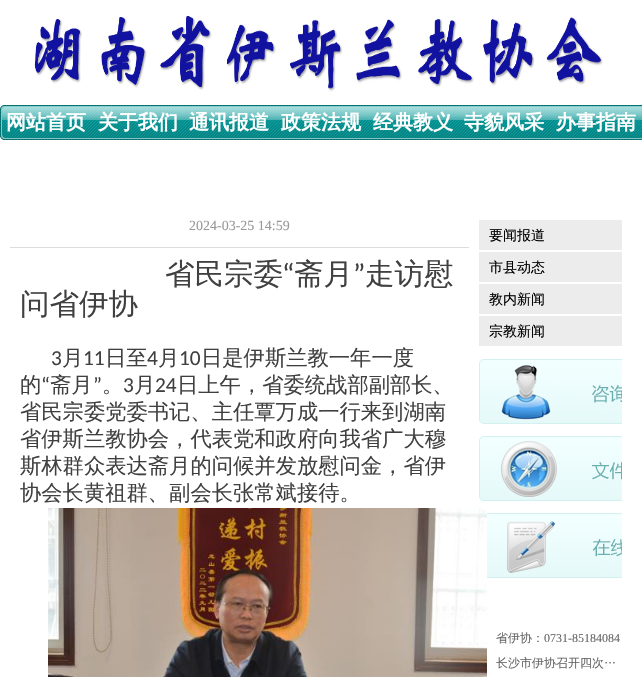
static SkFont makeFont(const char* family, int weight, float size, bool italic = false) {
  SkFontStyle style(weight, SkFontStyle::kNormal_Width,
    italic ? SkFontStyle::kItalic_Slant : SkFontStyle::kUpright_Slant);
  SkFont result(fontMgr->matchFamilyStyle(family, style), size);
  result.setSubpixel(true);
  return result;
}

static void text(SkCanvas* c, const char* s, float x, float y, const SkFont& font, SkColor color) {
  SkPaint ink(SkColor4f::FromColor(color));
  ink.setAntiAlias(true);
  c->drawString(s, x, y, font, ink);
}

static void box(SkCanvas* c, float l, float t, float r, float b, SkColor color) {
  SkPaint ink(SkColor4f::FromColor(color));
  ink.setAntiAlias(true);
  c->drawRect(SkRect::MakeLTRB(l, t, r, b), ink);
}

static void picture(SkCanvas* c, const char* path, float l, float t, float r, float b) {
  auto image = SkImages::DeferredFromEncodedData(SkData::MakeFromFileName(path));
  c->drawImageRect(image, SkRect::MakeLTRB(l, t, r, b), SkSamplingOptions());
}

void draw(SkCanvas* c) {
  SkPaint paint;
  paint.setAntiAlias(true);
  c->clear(0xffffffff);
  picture(c, "img_01.png", 0, 0, 642, 204);
  picture(c, "img_02.png", 0, 105, 642, 160);
  SkFont face1 = makeFont("WenQuanYi Zen Hei", 700, 20);
  text(c, "网站首页", 6, 129, face1, 0xffffffff);
  text(c, "关于我们", 98, 129, face1, 0xffffffff);
  text(c, "通讯报道", 189, 129, face1, 0xffffffff);
  text(c, "政策法规", 281, 129, face1, 0xffffffff);
  text(c, "经典教义", 373, 129, face1, 0xffffffff);
  text(c, "寺貌风采", 464, 129, face1, 0xffffffff);
  text(c, "办事指南", 556, 129, face1, 0xffffffff);
  SkFont face2 = makeFont("Liberation Serif", 400, 14);
  text(c, "2024-03-25 14:59", 189, 230, face2, 0xff999999);
  box(c, 10, 247, 469, 248, 0xffdddddd);
  box(c, 479, 220, 622, 250, 0xffececec);
  SkFont face3 = makeFont("WenQuanYi Zen Hei", 500, 14);
  text(c, "要闻报道", 489, 240, face3, 0xff000000);
  box(c, 479, 252, 622, 282, 0xffececec);
  text(c, "市县动态", 489, 272, face3, 0xff000000);
  box(c, 479, 284, 622, 314, 0xffececec);
  text(c, "教内新闻", 489, 304, face3, 0xff000000);
  box(c, 479, 316, 622, 346, 0xffececec);
  text(c, "宗教新闻", 489, 336, face3, 0xff000000);
  SkFont face4 = makeFont("WenQuanYi Zen Hei", 500, 29.5f);
  text(c, "省民宗委", 165, 284, face4, 0xff404040);
  SkFont face5 = makeFont("Carlito", 400, 29.5f);
  text(c, "“", 282, 284, face5, 0xff404040);
  text(c, "斋月", 294, 284, face4, 0xff404040);
  text(c, "”", 353, 284, face5, 0xff404040);
  text(c, "走访慰", 365, 284, face4, 0xff404040);
  text(c, "问省伊协", 20, 314, face4, 0xff404040);
  SkFont face6 = makeFont("Carlito", 400, 21.3f);
  text(c, "3", 51, 365, face6, 0xff404040);
  SkFont face7 = makeFont("WenQuanYi Zen Hei", 500, 21.3f);
  text(c, "月", 62, 365, face7, 0xff404040);
  text(c, "11", 83, 365, face6, 0xff404040);
  text(c, "日至", 105, 365, face7, 0xff404040);
  text(c, "4", 147, 365, face6, 0xff404040);
  text(c, "月", 158, 365, face7, 0xff404040);
  text(c, "10", 179, 365, face6, 0xff404040);
  text(c, "日是伊斯兰教一年一度", 201, 365, face7, 0xff404040);
  text(c, "的", 20, 392, face7, 0xff404040);
  text(c, "“", 41, 392, face6, 0xff404040);
  text(c, "斋月", 50, 392, face7, 0xff404040);
  text(c, "”", 93, 392, face6, 0xff404040);
  text(c, "。", 102, 392, face7, 0xff404040);
  text(c, "3", 123, 392, face6, 0xff404040);
  text(c, "月", 134, 392, face7, 0xff404040);
  text(c, "24", 155, 392, face6, 0xff404040);
  text(c, "日上午，省委统战部副部长、", 177, 392, face7, 0xff404040);
  text(c, "省民宗委党委书记、主任覃万成一行来到湖南", 20, 419, face7, 0xff404040);
  text(c, "省伊斯兰教协会，代表党和政府向我省广大穆", 20, 446, face7, 0xff404040);
  text(c, "斯林群众表达斋月的问候并发放慰问金，省伊", 20, 473, face7, 0xff404040);
  text(c, "协会长黄祖群、副会长张常斌接待。", 20, 500, face7, 0xff404040);
  picture(c, "img_03.png", 48, 508, 487, 677);
  picture(c, "img_04.png", 479, 359, 622, 424);
  picture(c, "img_05.png", 479, 436, 622, 501);
  picture(c, "img_06.png", 487, 513, 622, 578);
  SkFont face8 = makeFont("WenQuanYi Zen Hei", 500, 12);
  text(c, "省伊协：", 496, 642, face8, 0xff666666);
  SkFont face9 = makeFont("Liberation Serif", 400, 12);
  text(c, "0731-85184084", 544, 642, face9, 0xff666666);
  text(c, "长沙市伊协召开四次…", 496, 667, face8, 0xff666666);
}
